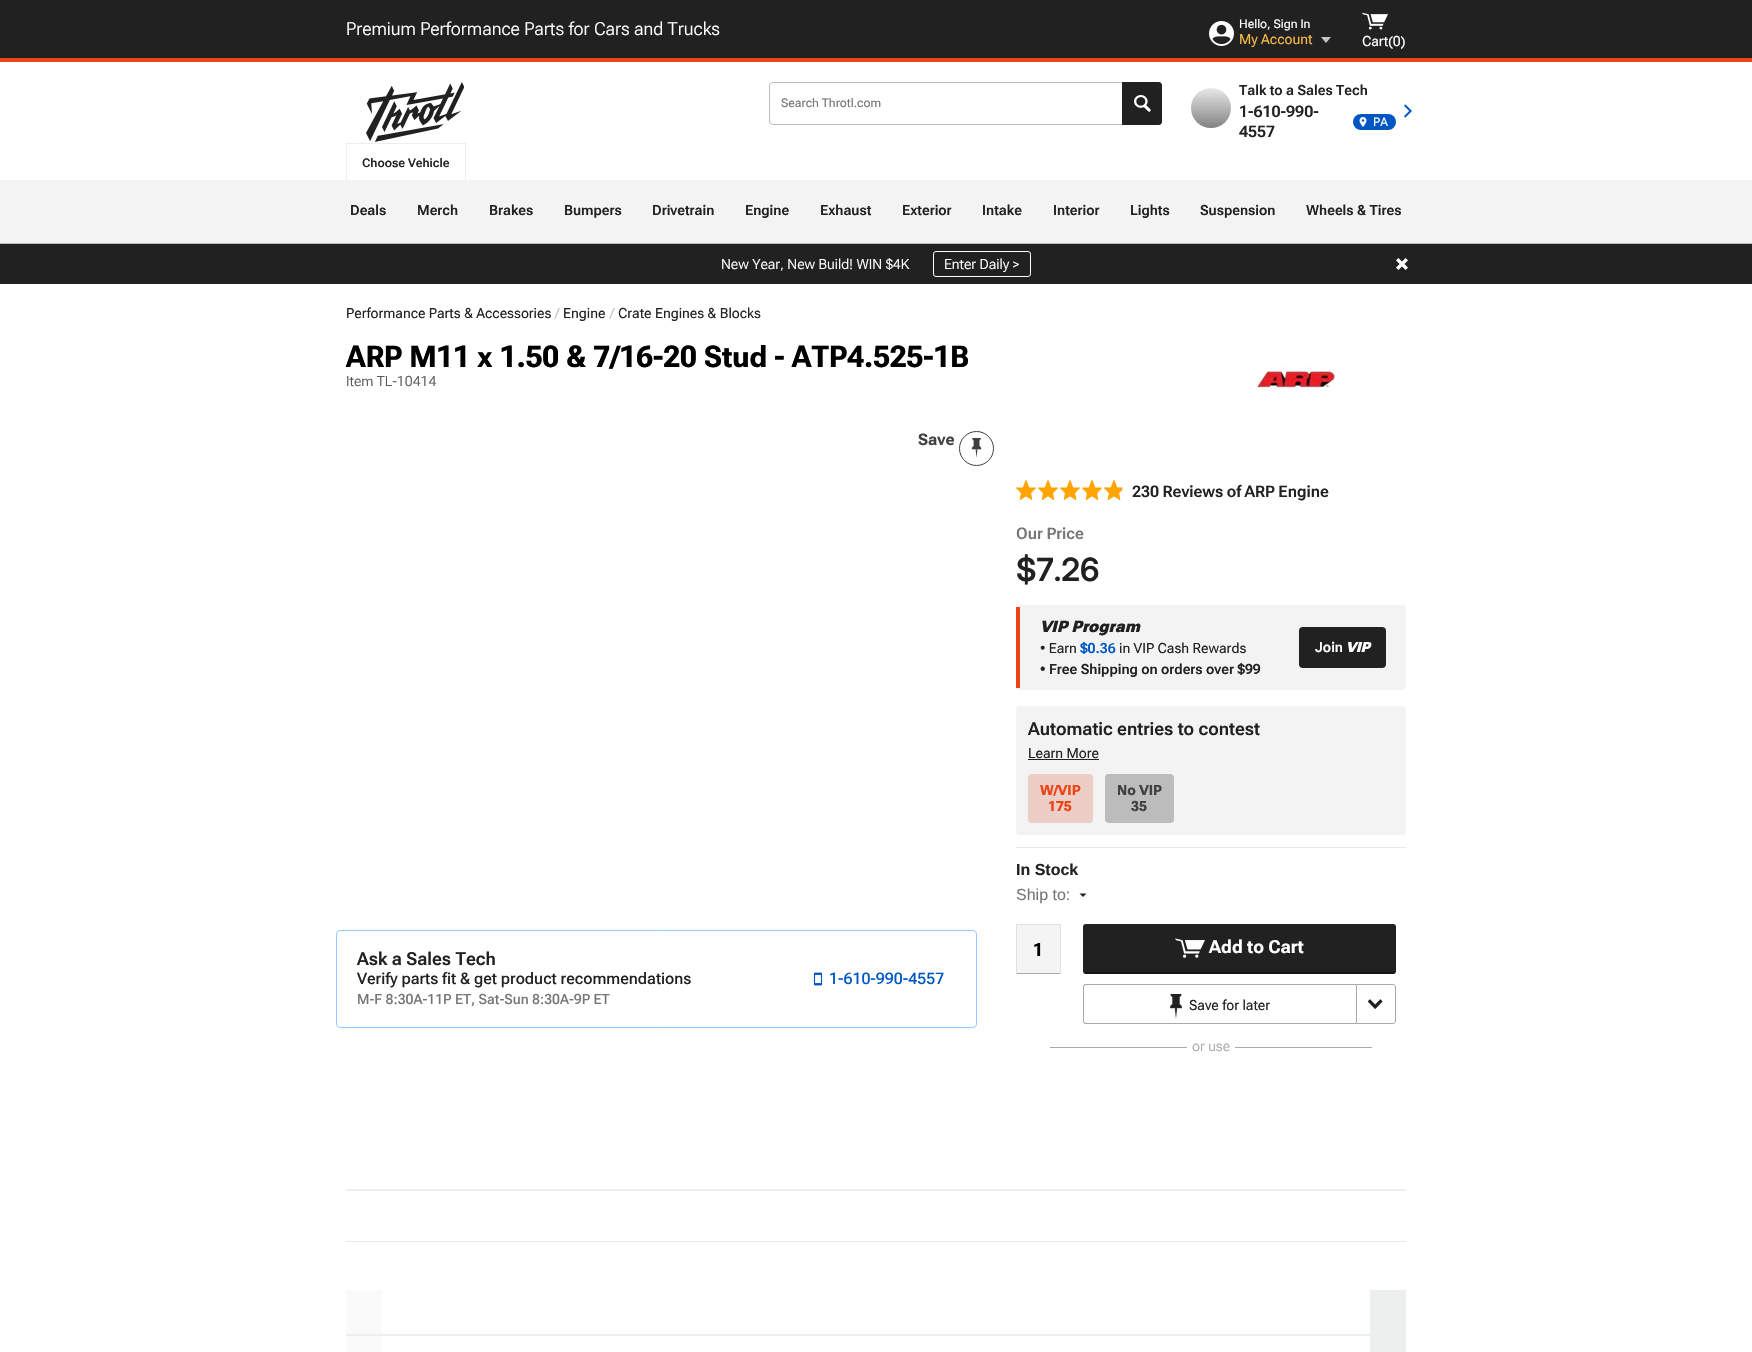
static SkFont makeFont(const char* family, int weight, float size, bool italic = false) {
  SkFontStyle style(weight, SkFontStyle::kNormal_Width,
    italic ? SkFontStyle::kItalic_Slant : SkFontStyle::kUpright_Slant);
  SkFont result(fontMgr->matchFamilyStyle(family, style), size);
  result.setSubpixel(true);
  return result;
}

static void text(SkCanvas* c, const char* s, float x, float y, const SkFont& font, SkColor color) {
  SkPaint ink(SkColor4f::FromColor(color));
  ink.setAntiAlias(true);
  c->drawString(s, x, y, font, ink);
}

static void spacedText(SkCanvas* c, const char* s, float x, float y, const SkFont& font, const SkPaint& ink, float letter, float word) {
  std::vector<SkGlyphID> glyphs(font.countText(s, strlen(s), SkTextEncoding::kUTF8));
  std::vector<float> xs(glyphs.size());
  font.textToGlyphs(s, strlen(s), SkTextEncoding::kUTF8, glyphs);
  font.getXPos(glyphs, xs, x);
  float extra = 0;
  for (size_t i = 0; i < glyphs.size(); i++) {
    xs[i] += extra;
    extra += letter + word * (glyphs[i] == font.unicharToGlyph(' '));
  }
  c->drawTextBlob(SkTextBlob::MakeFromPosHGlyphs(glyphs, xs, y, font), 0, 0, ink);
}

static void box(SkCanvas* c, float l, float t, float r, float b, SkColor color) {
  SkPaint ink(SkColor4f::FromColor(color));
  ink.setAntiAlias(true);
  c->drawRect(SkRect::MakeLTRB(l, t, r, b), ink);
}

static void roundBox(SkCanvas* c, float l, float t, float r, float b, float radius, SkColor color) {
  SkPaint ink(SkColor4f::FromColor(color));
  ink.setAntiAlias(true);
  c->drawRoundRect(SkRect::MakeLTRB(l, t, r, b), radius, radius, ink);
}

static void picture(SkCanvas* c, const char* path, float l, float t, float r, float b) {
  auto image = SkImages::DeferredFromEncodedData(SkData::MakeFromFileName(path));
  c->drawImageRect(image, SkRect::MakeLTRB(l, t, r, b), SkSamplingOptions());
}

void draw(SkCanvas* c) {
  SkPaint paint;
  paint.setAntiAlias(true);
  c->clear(0xffffffff);
  box(c, 346, 1290, 382, 1352, 0xfffafafa);
  box(c, 0, 0, 1752, 58, 0xff212121);
  box(c, 0, 58, 1752, 62, 0xffec4417);
  SkFont face1 = makeFont("Roboto Flex", 300, 18);
  text(c, "Premium Performance Parts for Cars and Trucks", 346, 35, face1, 0xffffffff);
  picture(c, "img_01.png", 1209, 21, 1234, 46);
  SkFont face2 = makeFont("Roboto Flex", 400, 12);
  text(c, "Hello, Sign In", 1239, 28, face2, 0xffffffff);
  SkFont face3 = makeFont("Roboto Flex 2", 400, 14);
  text(c, "My Account", 1239, 44, face3, 0xfffbbc44);
  paint.setColor(0xffc4c4c4);
  c->drawPath(SkPathBuilder().moveTo(1326, 43).lineTo(1321, 37).lineTo(1331, 37).close().detach(), paint);
  picture(c, "img_02.png", 1362, 12, 1388, 30);
  text(c, "Cart(0)", 1362, 46, face3, 0xffffffff);
  picture(c, "img_03.png", 366, 82, 464, 142);
  paint.setStyle(SkPaint::kStroke_Style);
  paint.setStrokeWidth(1);
  paint.setColor(0xffbcbcbc);
  c->drawRoundRect(SkRect::MakeLTRB(769.5f, 82.5f, 1158.5f, 124.5f), 3.5f, 3.5f, paint);
  text(c, "Search Throtl.com", 781, 107, face2, 0xff757575);
  paint.setStyle(SkPaint::kFill_Style);
  paint.setColor(0xff212121);
  c->drawPath(SkPathBuilder().moveTo(1122, 82).lineTo(1159, 82).cubicTo(1160.5f, 82, 1162, 83.5f, 1162, 85).lineTo(1162, 122).cubicTo(1162, 123.5f, 1160.5f, 125, 1159, 125).lineTo(1122, 125).close().detach(), paint);
  picture(c, "img_04.png", 1134, 95, 1151, 112);
  {
    const SkColor colors[] = {0xffe8e8e8, 0xff828282};
    const float stops[] = {0, 1};
    const SkPoint ends[] = {{1211, 88}, {1211, 128}};
    paint.setShader(SkGradientShader::MakeLinear(ends, colors, stops, 2, SkTileMode::kClamp));
    paint.setAlpha(255);
  }
  c->drawCircle(1211, 108, 20, paint);
  SkFont face4 = makeFont("Roboto Flex", 600, 14);
  text(c, "Talk to a Sales Tech", 1239, 95, face4, 0xff212121);
  SkFont face5 = makeFont("Roboto Flex", 600, 16);
  text(c, "1-610-990-", 1239, 117, face5, 0xff212121);
  text(c, "4557", 1239, 137, face5, 0xff212121);
  roundBox(c, 1353, 114, 1396, 130, 8, 0xff0057c2);
  picture(c, "img_05.png", 1359, 117, 1367, 127);
  text(c, "PA", 1373, 126, face2, 0xffffffff);
  picture(c, "img_06.png", 1404, 104, 1412, 118);
  paint.setStyle(SkPaint::kStroke_Style);
  paint.setShader(nullptr);
  paint.setColor(0xffedeeee);
  c->drawRect(SkRect::MakeLTRB(346.5f, 143.5f, 465.5f, 180.5f), paint);
  SkFont face6 = makeFont("Roboto Flex 2", 600, 12);
  text(c, "Choose Vehicle", 362, 167, face6, 0xff212121);
  box(c, 0, 180, 1752, 243, 0xfff3f3f3);
  box(c, 0, 243, 1752, 244, 0xffbcbcbc);
  text(c, "Deals", 350, 215, face4, 0xff212121);
  text(c, "Merch", 417, 215, face4, 0xff212121);
  text(c, "Brakes", 489, 215, face4, 0xff212121);
  text(c, "Bumpers", 564, 215, face4, 0xff212121);
  text(c, "Drivetrain", 652, 215, face4, 0xff212121);
  text(c, "Engine", 745, 215, face4, 0xff212121);
  text(c, "Exhaust", 820, 215, face4, 0xff212121);
  text(c, "Exterior", 902, 215, face4, 0xff212121);
  text(c, "Intake", 982, 215, face4, 0xff212121);
  text(c, "Interior", 1053, 215, face4, 0xff212121);
  text(c, "Lights", 1130, 215, face4, 0xff212121);
  text(c, "Suspension", 1200, 215, face4, 0xff212121);
  text(c, "Wheels & Tires", 1306, 215, face4, 0xff212121);
  box(c, 0, 244, 1752, 284, 0xff212121);
  SkFont face7 = makeFont("Roboto Flex 2", 300, 14);
  text(c, "New Year, New Build! WIN $4K", 721, 269, face7, 0xffffffff);
  paint.setColor(0xffffffff);
  c->drawRoundRect(SkRect::MakeLTRB(933.5f, 251.5f, 1030.5f, 276.5f), 2.5f, 2.5f, paint);
  text(c, "Enter Daily >", 944, 269, face7, 0xffffffff);
  picture(c, "img_07.png", 1396, 258, 1408, 270);
  text(c, "Performance Parts & Accessories", 346, 318, face3, 0xff212121);
  text(c, "/", 555, 318, face7, 0xffbcbcbc);
  text(c, "Engine", 563, 318, face3, 0xff212121);
  text(c, "/", 610, 318, face7, 0xffbcbcbc);
  text(c, "Crate Engines & Blocks", 618, 318, face3, 0xff212121);
  SkFont face8 = makeFont("Roboto Flex", 700, 30);
  text(c, "ARP M11 x 1.50 & 7/16-20 Stud - ATP4.525-1B", 346, 367, face8, 0xff000000);
  text(c, "Item TL-10414", 346, 386, face7, 0xff58595b);
  picture(c, "img_08.png", 1254, 366, 1336, 391);
  SkFont face9 = makeFont("Roboto Flex 2", 700, 16);
  text(c, "Save", 918, 445, face9, 0xff414042);
  picture(c, "img_09.png", 971, 438, 982, 458);
  paint.setColor(0xff414042);
  c->drawCircle(976.5f, 448.5f, 17, paint);
  paint.setColor(0xff94cbff);
  c->drawRoundRect(SkRect::MakeLTRB(336.5f, 930.5f, 976.5f, 1027.5f), 3.5f, 3.5f, paint);
  SkFont face10 = makeFont("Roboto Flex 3", 600, 18);
  text(c, "Ask a Sales Tech", 357, 965, face10, 0xff212121);
  SkFont face11 = makeFont("Roboto Flex", 500, 16);
  text(c, "Verify parts fit & get product recommendations", 357, 984, face11, 0xff212121);
  SkFont face12 = makeFont("Roboto Flex 2", 500, 14);
  text(c, "M-F 8:30A-11P ET, Sat-Sun 8:30A-9P ET", 357, 1004, face12, 0xff757575);
  picture(c, "img_10.png", 813, 972, 823, 986);
  text(c, "1-610-990-4557", 829, 984, face11, 0xff0057c2);
  picture(c, "img_11.png", 1016, 480, 1124, 500);
  paint.setStyle(SkPaint::kFill_Style);
  paint.setColor(0xff212121);
  spacedText(c, "230 Reviews of ARP Engine", 1132, 497, face5, paint, 0, -0.5f);
  text(c, "Our Price", 1016, 539, face5, 0xff757575);
  SkFont face13 = makeFont("Inter", 600, 32);
  text(c, "$7.26", 1016, 581, face13, 0xff212121);
  roundBox(c, 1016, 605, 1406, 690, 4, 0xfff3f3f3);
  box(c, 1016, 607, 1020, 688, 0xffec4417);
  SkFont face14 = makeFont("Roboto Flex", 900, 16, true);
  text(c, "VIP Program", 1040, 632, face14, 0xff212121);
  text(c, "• Earn", 1040, 653, face3, 0xff212121);
  text(c, "$0.36", 1080, 653, face4, 0xff0057c2);
  text(c, "in VIP Cash Rewards", 1119, 653, face3, 0xff212121);
  text(c, "• Free Shipping on orders over $99", 1040, 674, face4, 0xff212121);
  roundBox(c, 1299, 627, 1386, 668, 4, 0xff212121);
  text(c, "Join", 1315, 652, face4, 0xffffffff);
  SkFont face15 = makeFont("Roboto Flex", 900, 14, true);
  text(c, "VIP", 1346, 652, face15, 0xffffffff);
  roundBox(c, 1016, 706, 1406, 835, 4, 0xfff3f3f3);
  text(c, "Automatic entries to contest", 1028, 735, face10, 0xff212121);
  text(c, "Learn More", 1028, 758, face3, 0xff212121);
  box(c, 1028, 759, 1099, 760, 0xff212121);
  roundBox(c, 1028, 774, 1093, 823, 4, 0xffedcec6);
  SkFont face16 = makeFont("Roboto Flex", 800, 14);
  text(c, "W/VIP", 1040, 795, face16, 0xffec4417);
  text(c, "175", 1048, 811, face16, 0xffec4417);
  roundBox(c, 1105, 774, 1174, 823, 4, 0xffbcbcbc);
  text(c, "No VIP", 1117, 795, face16, 0xff414042);
  text(c, "35", 1131, 811, face16, 0xff414042);
  box(c, 1016, 847, 1406, 848, 0xffe8e8e8);
  SkFont face17 = makeFont("Liberation Sans", 700, 16);
  text(c, "In Stock", 1016, 875, face17, 0xff212121);
  SkFont face18 = makeFont("Liberation Sans", 400, 16);
  text(c, "Ship to:", 1016, 900, face18, 0xff757575);
  c->drawPath(SkPathBuilder().moveTo(1079.5f, 893.5f).lineTo(1083, 897).lineTo(1086.5f, 893.5f).close().detach(), paint);
  box(c, 1016, 924, 1061, 974, 0xfff4f4f4);
  box(c, 1017, 973, 1060, 974, 0xffa7a9ac);
  paint.setColor(0xffe1e1e2);
  c->drawPath(SkPathBuilder().moveTo(1016, 924).lineTo(1061, 924).lineTo(1060, 925).lineTo(1017, 925).close().detach(), paint);
  paint.setColor(0x40a7a9ac);
  c->drawPath(SkPathBuilder().moveTo(1061, 924).lineTo(1061, 974).lineTo(1060, 974).lineTo(1060, 925).close().moveTo(1016, 974).lineTo(1016, 924).lineTo(1017, 925).lineTo(1017, 974).close().detach(), paint);
  SkFont face19 = makeFont("Roboto Flex 2", 700, 18);
  text(c, "1", 1033, 956, face19, 0xff000000);
  roundBox(c, 1083, 924, 1396, 974, 3, 0xff212121);
  box(c, 1085, 972, 1395, 974, 0x59000000);
  picture(c, "img_12.png", 1175, 938, 1205, 958);
  SkFont face20 = makeFont("Roboto Flex 3", 700, 18);
  text(c, "Add to Cart", 1209, 953, face20, 0xffffffff);
  paint.setColor(0xffa7a9ac);
  c->drawPath(SkPathBuilder(SkPathFillType::kEvenOdd).moveTo(1086, 984).lineTo(1356, 984).lineTo(1356, 1024).lineTo(1086, 1024).cubicTo(1084, 1024, 1083, 1023, 1083, 1021).lineTo(1083, 987).cubicTo(1083, 985, 1084, 984, 1086, 984).close().moveTo(1086, 985).lineTo(1356, 985).lineTo(1356, 1023).lineTo(1086, 1023).cubicTo(1085, 1023, 1084, 1022, 1084, 1021).lineTo(1084, 987).cubicTo(1084, 986, 1085, 985, 1086, 985).close().detach(), paint);
  picture(c, "img_13.png", 1170, 994, 1182, 1019);
  text(c, "Save for later", 1189, 1010, face3, 0xff212121);
  paint.setStyle(SkPaint::kStroke_Style);
  c->drawPath(SkPathBuilder().moveTo(1356.5f, 984.5f).lineTo(1393, 984.5f).cubicTo(1394.5f, 984.5f, 1395.5f, 985.5f, 1395.5f, 987).lineTo(1395.5f, 1021).cubicTo(1395.5f, 1022.5f, 1394.5f, 1023.5f, 1393, 1023.5f).lineTo(1356.5f, 1023.5f).close().detach(), paint);
  picture(c, "img_14.png", 1368, 999, 1383, 1009);
  box(c, 1050, 1047, 1187, 1048, 0xffa7a9ac);
  text(c, "or use", 1192, 1051, face7, 0xffa7a9ac);
  box(c, 1235, 1047, 1372, 1048, 0xffa7a9ac);
  box(c, 346, 1189, 1406, 1191, 0xffedeeee);
  box(c, 346, 1241, 1406, 1242, 0xffe8e8e8);
  box(c, 1370, 1290, 1406, 1352, 0xffedeeee);
  box(c, 346, 1334, 1370, 1336, 0xffedeeee);
}
